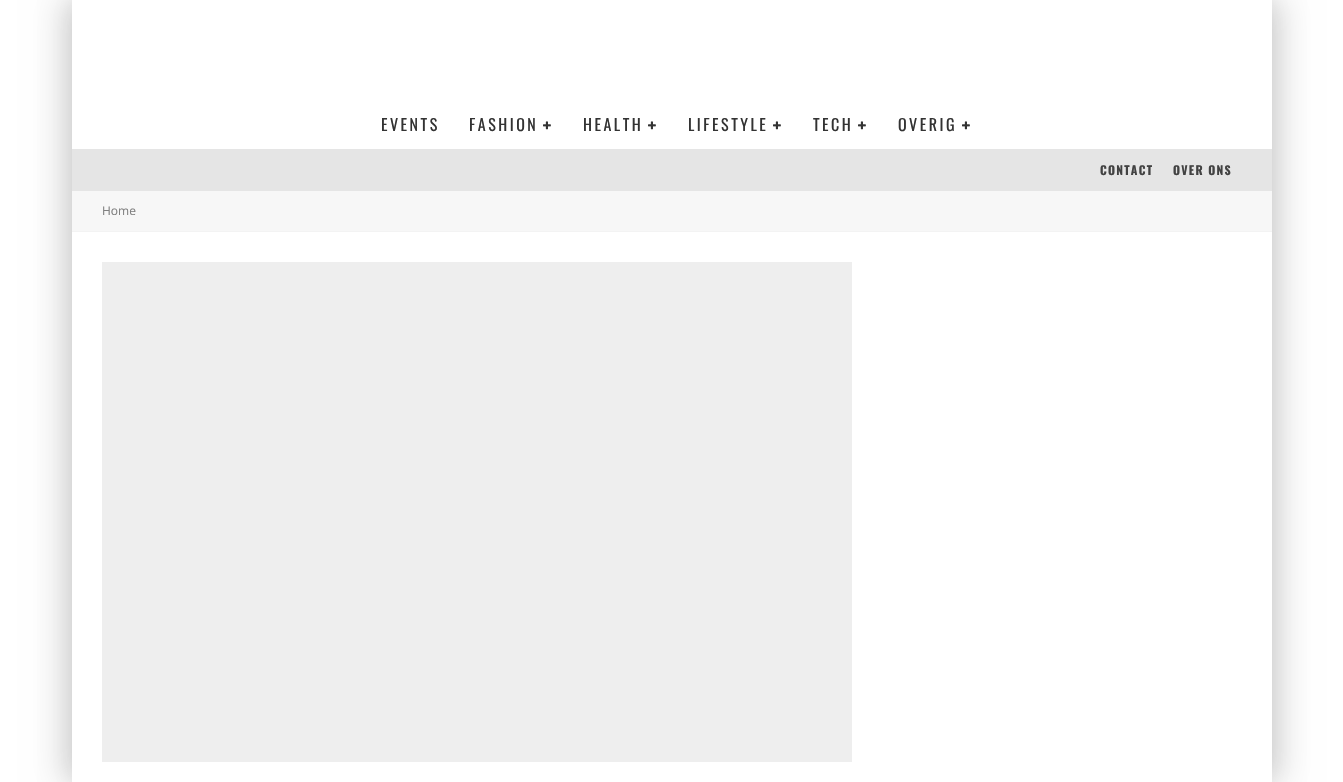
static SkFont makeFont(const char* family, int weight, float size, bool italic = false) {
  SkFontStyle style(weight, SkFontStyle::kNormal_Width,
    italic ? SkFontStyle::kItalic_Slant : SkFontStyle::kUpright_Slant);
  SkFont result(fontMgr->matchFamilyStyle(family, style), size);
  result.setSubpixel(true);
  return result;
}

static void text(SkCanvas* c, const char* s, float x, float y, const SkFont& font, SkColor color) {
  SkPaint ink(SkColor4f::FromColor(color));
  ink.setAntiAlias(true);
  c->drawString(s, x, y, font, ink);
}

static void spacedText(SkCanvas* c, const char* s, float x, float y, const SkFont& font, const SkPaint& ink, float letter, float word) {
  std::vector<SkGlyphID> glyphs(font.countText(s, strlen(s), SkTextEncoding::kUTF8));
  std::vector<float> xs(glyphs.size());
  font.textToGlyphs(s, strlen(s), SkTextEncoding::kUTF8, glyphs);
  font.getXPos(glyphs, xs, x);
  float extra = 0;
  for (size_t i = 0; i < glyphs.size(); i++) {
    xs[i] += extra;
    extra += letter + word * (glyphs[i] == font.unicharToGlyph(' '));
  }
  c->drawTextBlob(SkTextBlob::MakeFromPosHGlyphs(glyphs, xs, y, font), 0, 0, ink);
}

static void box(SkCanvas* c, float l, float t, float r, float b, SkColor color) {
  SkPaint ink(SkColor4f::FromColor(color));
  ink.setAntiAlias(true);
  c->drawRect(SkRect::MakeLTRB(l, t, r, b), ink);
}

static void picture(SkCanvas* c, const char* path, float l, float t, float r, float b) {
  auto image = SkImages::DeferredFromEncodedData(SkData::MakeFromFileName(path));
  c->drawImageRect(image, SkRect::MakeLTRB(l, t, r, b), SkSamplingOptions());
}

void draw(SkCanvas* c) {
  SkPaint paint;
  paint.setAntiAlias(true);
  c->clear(0xffffffff);
  c->save();
  c->clipPath(SkPathBuilder(SkPathFillType::kEvenOdd).moveTo(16, 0).lineTo(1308, 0).lineTo(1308, 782).lineTo(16, 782).close().moveTo(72, 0).lineTo(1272, 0).lineTo(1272, 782).lineTo(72, 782).close().detach(), true);
  paint.setColor(0x26000000);
  paint.setMaskFilter(SkMaskFilter::MakeBlur(kNormal_SkBlurStyle, 15));
  c->drawRect(SkRect::MakeLTRB(62, 0, 1262, 782), paint);
  paint.setMaskFilter(nullptr);
  c->restore();
  c->save();
  c->clipPath(SkPathBuilder(SkPathFillType::kEvenOdd).moveTo(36, 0).lineTo(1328, 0).lineTo(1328, 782).lineTo(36, 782).close().moveTo(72, 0).lineTo(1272, 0).lineTo(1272, 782).lineTo(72, 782).close().detach(), true);
  paint.setMaskFilter(SkMaskFilter::MakeBlur(kNormal_SkBlurStyle, 15));
  c->drawRect(SkRect::MakeLTRB(82, 0, 1282, 782), paint);
  paint.setMaskFilter(nullptr);
  c->restore();
  SkFont face1 = makeFont("Oswald", 400, 16);
  paint.setColor(0xff333333);
  spacedText(c, "EVENTS", 381, 131, face1, paint, 2.5f, 0);
  spacedText(c, "FASHION", 469, 131, face1, paint, 2.5f, 0);
  picture(c, "img_01.png", 543, 121, 551, 130);
  spacedText(c, "HEALTH", 583, 131, face1, paint, 2.5f, 0);
  picture(c, "img_01.png", 648, 121, 656, 130);
  spacedText(c, "LIFESTYLE", 688, 131, face1, paint, 2.5f, 0);
  picture(c, "img_01.png", 773, 121, 781, 130);
  spacedText(c, "TECH", 813, 131, face1, paint, 2.5f, 0);
  picture(c, "img_01.png", 858, 121, 866, 130);
  spacedText(c, "OVERIG", 898, 131, face1, paint, 2.5f, 0);
  picture(c, "img_01.png", 962, 121, 970, 130);
  box(c, 72, 149, 1272, 191, 0xffe5e5e5);
  SkFont face2 = makeFont("Oswald", 700, 12);
  paint.setColor(0xff424242);
  spacedText(c, "CONTACT", 1100, 175, face2, paint, 1.25f, 0);
  spacedText(c, "OVER ONS", 1173, 175, face2, paint, 1.25f, 0);
  box(c, 72, 191, 1272, 231, 0xfff7f7f7);
  box(c, 72, 231, 1272, 232, 0xfff3f3f3);
  SkFont face3 = makeFont("Open Sans", 400, 12);
  text(c, "Home", 102, 215, face3, 0xff808080);
  box(c, 102, 262, 852, 762, 0xffeeeeee);
}
